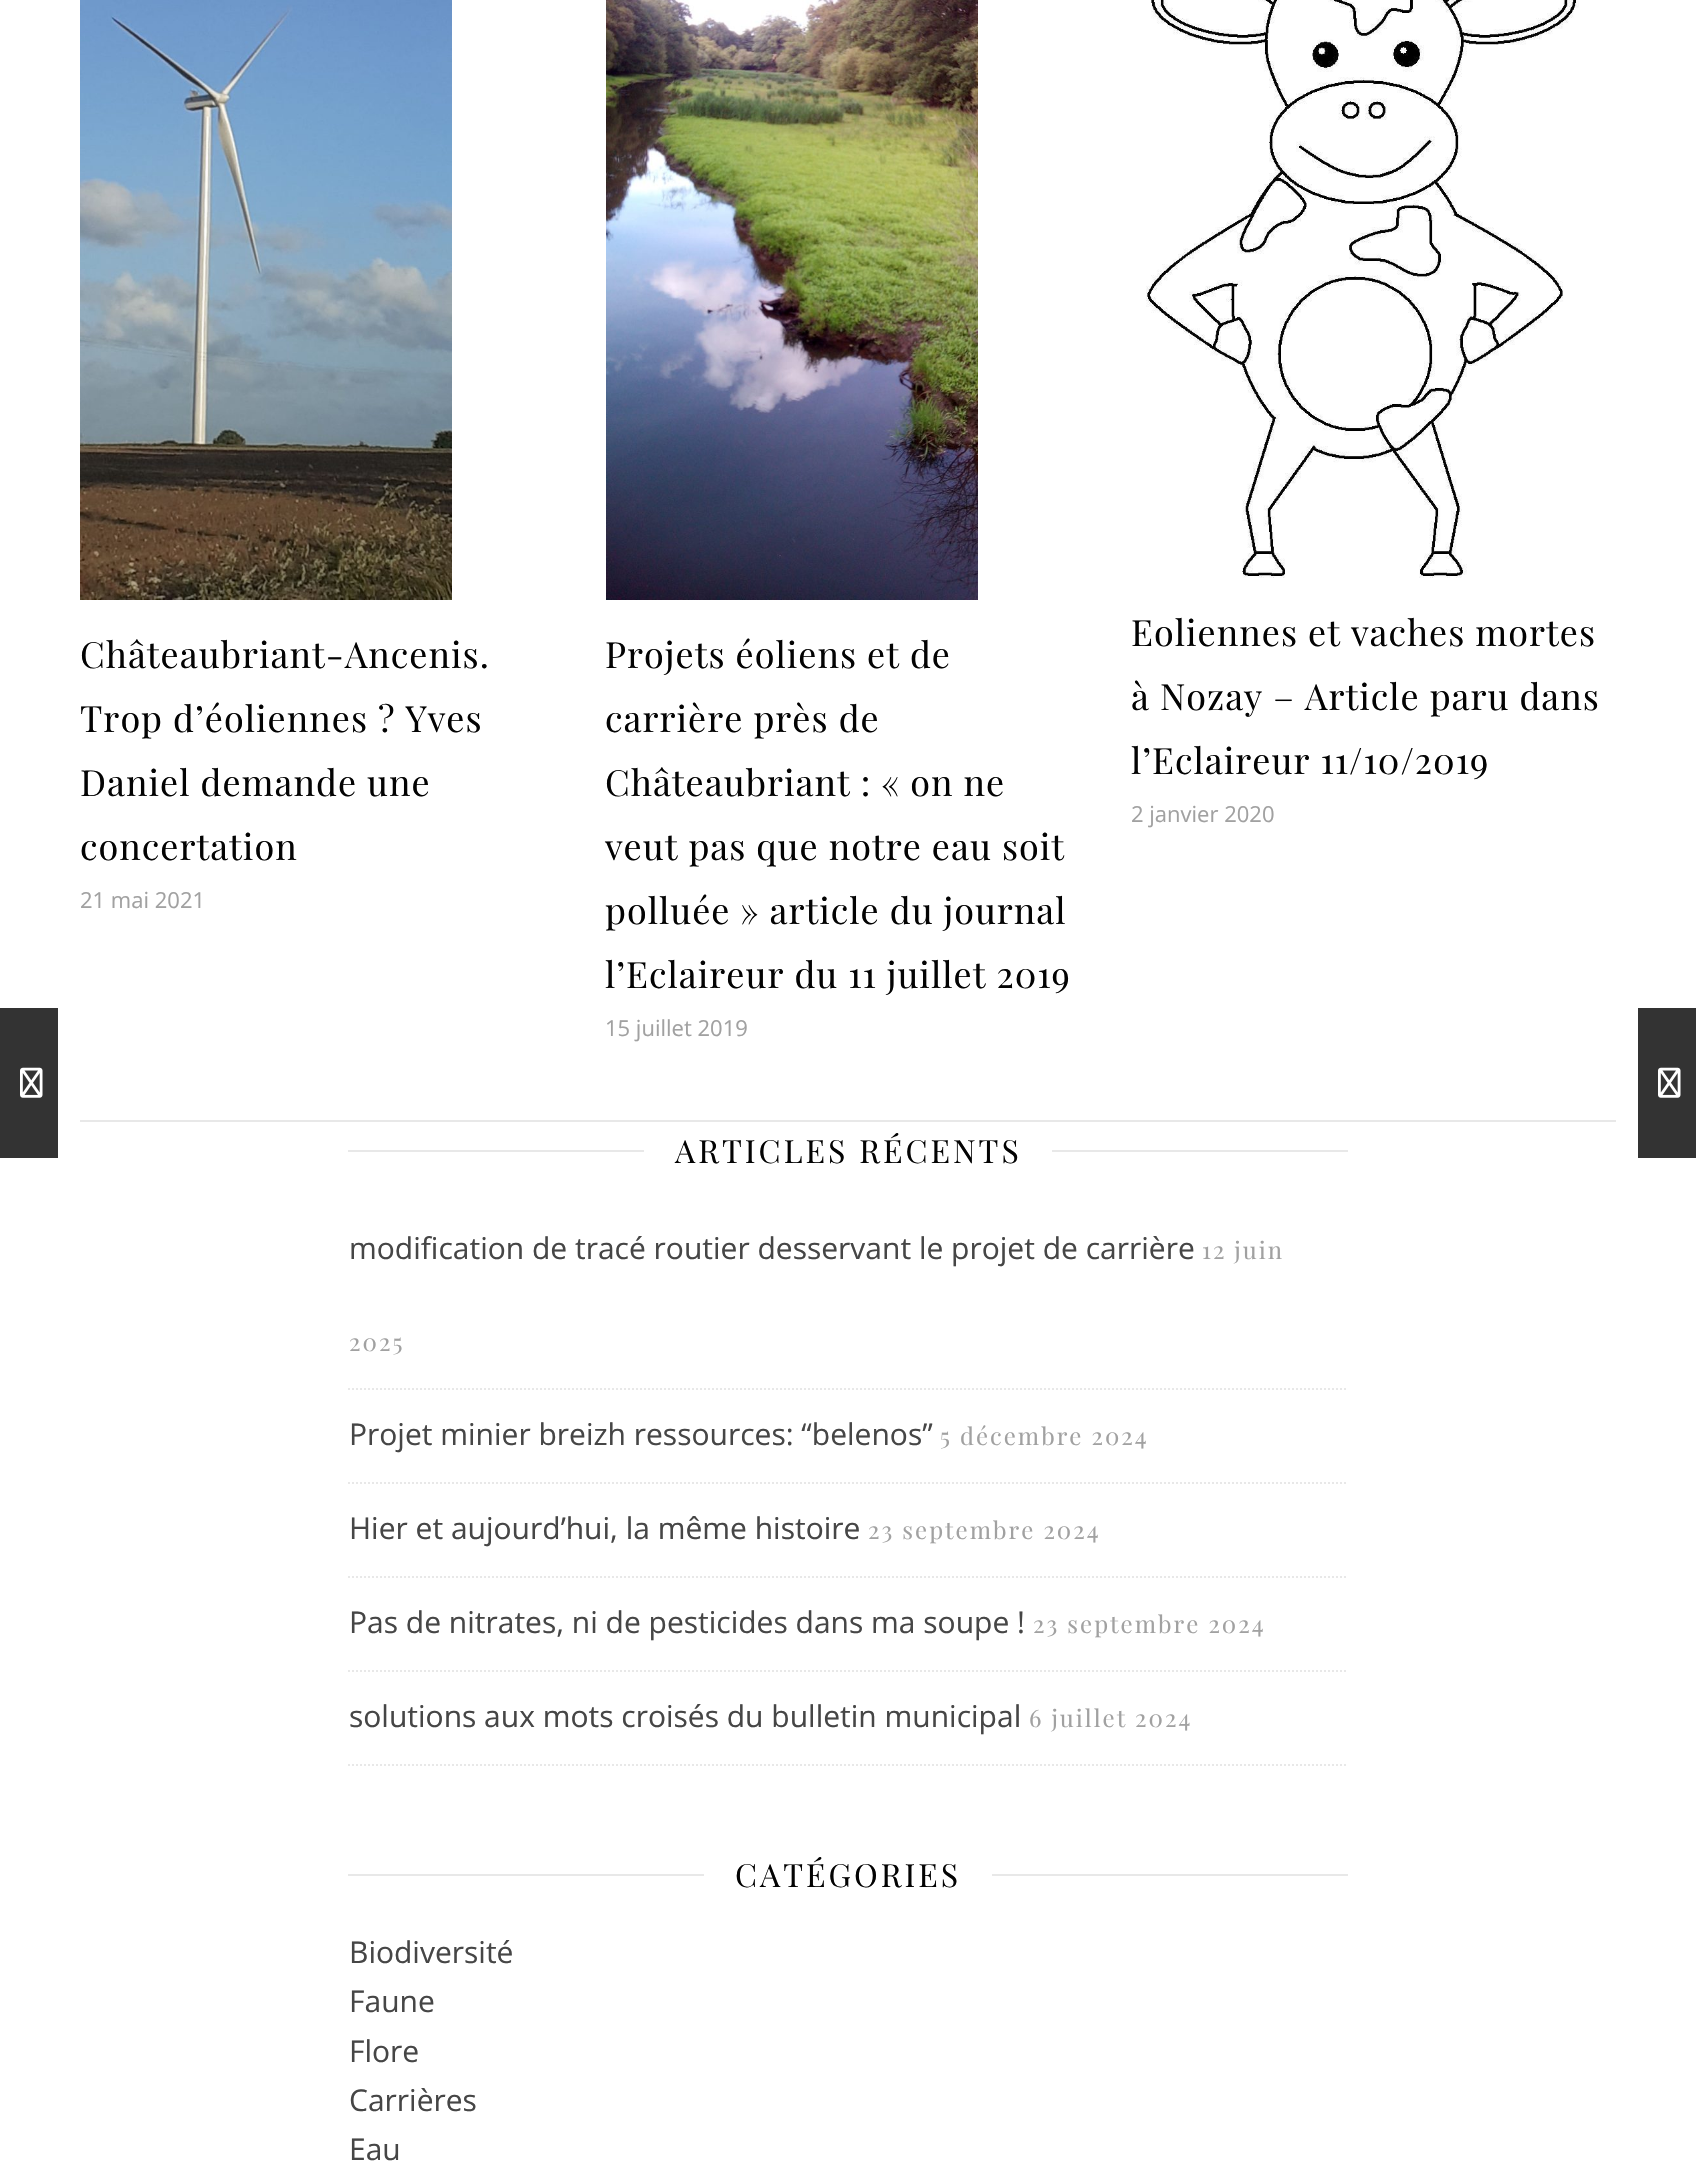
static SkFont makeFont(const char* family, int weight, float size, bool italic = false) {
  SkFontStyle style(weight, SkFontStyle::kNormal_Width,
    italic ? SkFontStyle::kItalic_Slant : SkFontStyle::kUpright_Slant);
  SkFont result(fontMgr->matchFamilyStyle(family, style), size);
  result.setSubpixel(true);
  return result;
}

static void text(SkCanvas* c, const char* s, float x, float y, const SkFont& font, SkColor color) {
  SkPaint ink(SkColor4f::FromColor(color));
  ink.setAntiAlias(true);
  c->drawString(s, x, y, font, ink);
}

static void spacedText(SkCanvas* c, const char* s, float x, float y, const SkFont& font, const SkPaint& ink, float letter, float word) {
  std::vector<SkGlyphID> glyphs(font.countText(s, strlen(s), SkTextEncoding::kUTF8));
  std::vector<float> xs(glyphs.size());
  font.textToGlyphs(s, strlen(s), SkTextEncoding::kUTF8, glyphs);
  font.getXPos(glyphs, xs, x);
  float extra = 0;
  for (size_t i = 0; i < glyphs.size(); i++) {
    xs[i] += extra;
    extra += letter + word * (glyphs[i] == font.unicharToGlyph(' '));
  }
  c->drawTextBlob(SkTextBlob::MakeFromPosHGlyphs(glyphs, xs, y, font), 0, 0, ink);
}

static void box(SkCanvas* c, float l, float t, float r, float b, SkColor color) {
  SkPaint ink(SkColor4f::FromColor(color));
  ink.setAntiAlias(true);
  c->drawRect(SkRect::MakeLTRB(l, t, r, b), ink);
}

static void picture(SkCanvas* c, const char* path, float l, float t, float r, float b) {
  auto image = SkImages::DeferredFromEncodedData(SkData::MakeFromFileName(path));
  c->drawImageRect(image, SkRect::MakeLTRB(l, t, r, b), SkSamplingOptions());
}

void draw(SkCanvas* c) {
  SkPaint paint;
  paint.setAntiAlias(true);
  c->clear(0xffffffff);
  box(c, 80, 1120, 1616, 1122, 0xffe8e8e8);
  picture(c, "img_01.png", 80, 0, 452, 600);
  SkFont face1 = makeFont("Playfair Display", 400, 36);
  paint.setColor(0xff030303);
  spacedText(c, "Châteaubriant-Ancenis.", 80, 668, face1, paint, 1, 0);
  spacedText(c, "Trop d’éoliennes ? Yves", 80, 732, face1, paint, 1, 0);
  spacedText(c, "Daniel demande une", 80, 796, face1, paint, 1, 0);
  spacedText(c, "concertation", 80, 860, face1, paint, 1, 0);
  SkFont face2 = makeFont("Open Sans", 400, 22);
  text(c, "21 mai 2021", 80, 908, face2, 0xffa1a1a1);
  picture(c, "img_02.png", 606, 0, 978, 600);
  spacedText(c, "Projets éoliens et de", 605, 668, face1, paint, 1, 0);
  spacedText(c, "carrière près de", 605, 732, face1, paint, 1, 0);
  spacedText(c, "Châteaubriant : « on ne", 605, 796, face1, paint, 1, 0);
  spacedText(c, "veut pas que notre eau soit", 605, 860, face1, paint, 1, 0);
  spacedText(c, "polluée » article du journal", 605, 924, face1, paint, 1, 0);
  spacedText(c, "l’Eclaireur du 11 juillet 2019", 605, 988, face1, paint, 1, 0);
  text(c, "15 juillet 2019", 605, 1036, face2, 0xffa1a1a1);
  picture(c, "img_03.png", 1146, 0, 1579, 578);
  spacedText(c, "Eoliennes et vaches mortes", 1131, 646, face1, paint, 1, 0);
  spacedText(c, "à Nozay – Article paru dans", 1131, 710, face1, paint, 1, 0);
  spacedText(c, "l’Eclaireur 11/10/2019", 1131, 774, face1, paint, 1, 0);
  text(c, "2 janvier 2020", 1131, 822, face2, 0xffa1a1a1);
  box(c, 0, 1008, 58, 1158, 0xff333333);
  picture(c, "img_04.png", 20, 1067, 43, 1098);
  box(c, 1638, 1008, 1696, 1158, 0xff333333);
  picture(c, "img_04.png", 1658, 1067, 1681, 1098);
  box(c, 348, 1150, 644, 1152, 0xffe8e8e8);
  SkFont face3 = makeFont("Playfair Display", 400, 32);
  spacedText(c, "ARTICLES RÉCENTS", 675, 1163, face3, paint, 3, 0);
  box(c, 1052, 1150, 1348, 1152, 0xffe8e8e8);
  paint.setStyle(SkPaint::kStroke_Style);
  paint.setStrokeWidth(2);
  paint.setColor(0xffe8e8e8);
  paint.setPathEffect(SkDashPathEffect::Make({{2, 2}}, 0));
  c->drawPath(SkPathBuilder().moveTo(348, 1389).lineTo(1348, 1389).detach(), paint);
  paint.setPathEffect(nullptr);
  SkFont face4 = makeFont("Open Sans", 400, 30);
  text(c, "modification de tracé routier desservant le projet de carrière", 349, 1259, face4, 0xff464646);
  SkFont face5 = makeFont("Playfair Display", 400, 24);
  paint.setStyle(SkPaint::kFill_Style);
  paint.setColor(0xffa1a1a1);
  spacedText(c, "12 juin", 1202, 1259, face5, paint, 2, 0);
  spacedText(c, "2025", 349, 1351, face5, paint, 2, 0);
  paint.setStyle(SkPaint::kStroke_Style);
  paint.setColor(0xffe8e8e8);
  paint.setPathEffect(SkDashPathEffect::Make({{2, 2}}, 0));
  c->drawPath(SkPathBuilder().moveTo(348, 1483).lineTo(1348, 1483).detach(), paint);
  paint.setPathEffect(nullptr);
  text(c, "Projet minier breizh ressources: “belenos”", 349, 1445, face4, 0xff464646);
  paint.setStyle(SkPaint::kFill_Style);
  paint.setColor(0xffa1a1a1);
  spacedText(c, "5 décembre 2024", 940, 1445, face5, paint, 2, 0);
  paint.setStyle(SkPaint::kStroke_Style);
  paint.setColor(0xffe8e8e8);
  paint.setPathEffect(SkDashPathEffect::Make({{2, 2}}, 0));
  c->drawPath(SkPathBuilder().moveTo(348, 1577).lineTo(1348, 1577).detach(), paint);
  paint.setPathEffect(nullptr);
  text(c, "Hier et aujourd’hui, la même histoire", 349, 1539, face4, 0xff464646);
  paint.setStyle(SkPaint::kFill_Style);
  paint.setColor(0xffa1a1a1);
  spacedText(c, "23 septembre 2024", 868, 1539, face5, paint, 2, 0);
  paint.setStyle(SkPaint::kStroke_Style);
  paint.setColor(0xffe8e8e8);
  paint.setPathEffect(SkDashPathEffect::Make({{2, 2}}, 0));
  c->drawPath(SkPathBuilder().moveTo(348, 1671).lineTo(1348, 1671).detach(), paint);
  paint.setPathEffect(nullptr);
  text(c, "Pas de nitrates, ni de pesticides dans ma soupe !", 349, 1633, face4, 0xff464646);
  paint.setStyle(SkPaint::kFill_Style);
  paint.setColor(0xffa1a1a1);
  spacedText(c, "23 septembre 2024", 1033, 1633, face5, paint, 2, 0);
  paint.setStyle(SkPaint::kStroke_Style);
  paint.setColor(0xffe8e8e8);
  paint.setPathEffect(SkDashPathEffect::Make({{2, 2}}, 0));
  c->drawPath(SkPathBuilder().moveTo(348, 1765).lineTo(1348, 1765).detach(), paint);
  paint.setPathEffect(nullptr);
  text(c, "solutions aux mots croisés du bulletin municipal", 349, 1727, face4, 0xff464646);
  paint.setStyle(SkPaint::kFill_Style);
  paint.setColor(0xffa1a1a1);
  spacedText(c, "6 juillet 2024", 1029, 1727, face5, paint, 2, 0);
  box(c, 348, 1874, 704, 1876, 0xffe8e8e8);
  paint.setColor(0xff030303);
  spacedText(c, "CATÉGORIES", 735, 1887, face3, paint, 3, 0);
  box(c, 992, 1874, 1348, 1876, 0xffe8e8e8);
  text(c, "Biodiversité", 349, 1963, face4, 0xff464646);
  text(c, "Faune", 349, 2012, face4, 0xff464646);
  text(c, "Flore", 349, 2062, face4, 0xff464646);
  text(c, "Carrières", 349, 2111, face4, 0xff464646);
  text(c, "Eau", 349, 2160, face4, 0xff464646);
}
